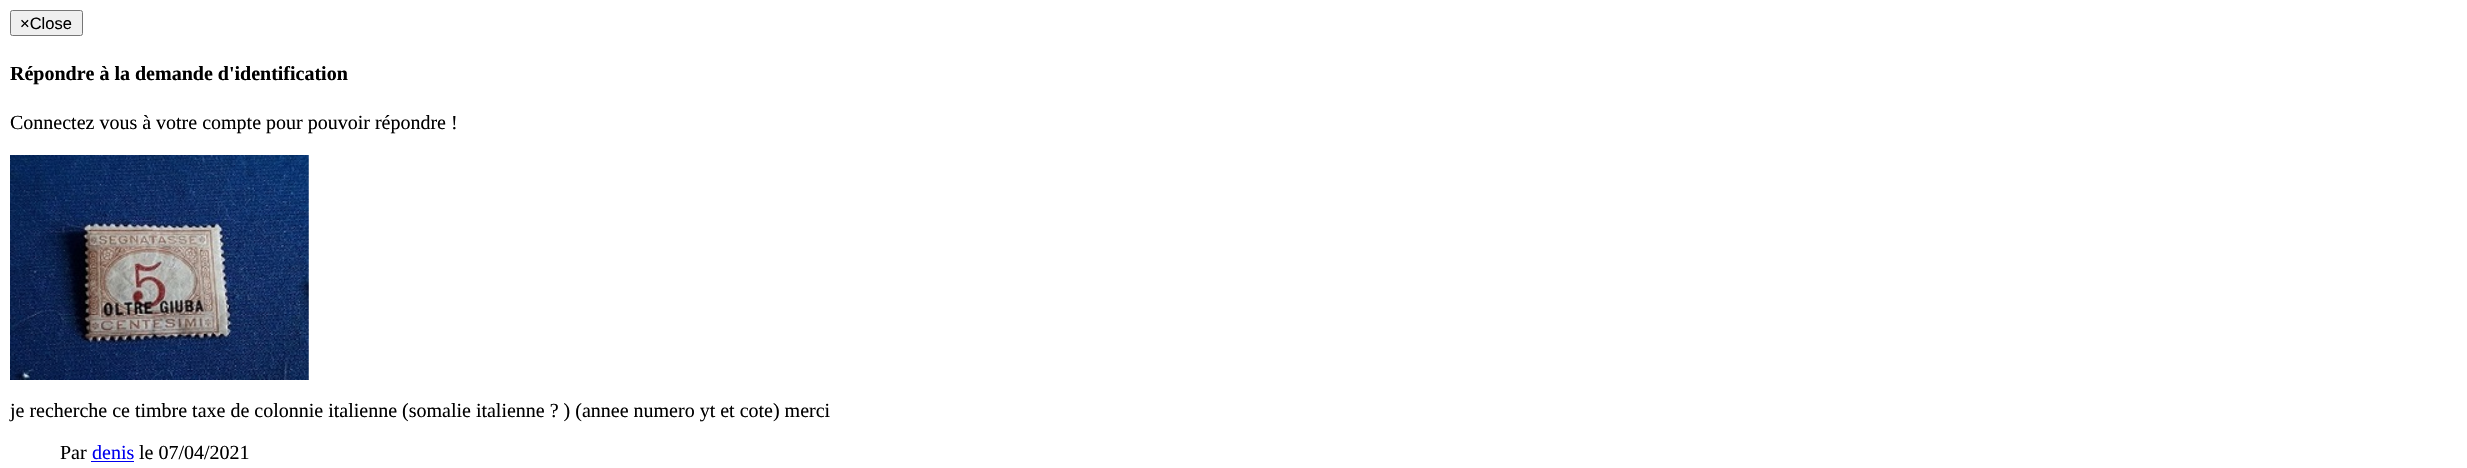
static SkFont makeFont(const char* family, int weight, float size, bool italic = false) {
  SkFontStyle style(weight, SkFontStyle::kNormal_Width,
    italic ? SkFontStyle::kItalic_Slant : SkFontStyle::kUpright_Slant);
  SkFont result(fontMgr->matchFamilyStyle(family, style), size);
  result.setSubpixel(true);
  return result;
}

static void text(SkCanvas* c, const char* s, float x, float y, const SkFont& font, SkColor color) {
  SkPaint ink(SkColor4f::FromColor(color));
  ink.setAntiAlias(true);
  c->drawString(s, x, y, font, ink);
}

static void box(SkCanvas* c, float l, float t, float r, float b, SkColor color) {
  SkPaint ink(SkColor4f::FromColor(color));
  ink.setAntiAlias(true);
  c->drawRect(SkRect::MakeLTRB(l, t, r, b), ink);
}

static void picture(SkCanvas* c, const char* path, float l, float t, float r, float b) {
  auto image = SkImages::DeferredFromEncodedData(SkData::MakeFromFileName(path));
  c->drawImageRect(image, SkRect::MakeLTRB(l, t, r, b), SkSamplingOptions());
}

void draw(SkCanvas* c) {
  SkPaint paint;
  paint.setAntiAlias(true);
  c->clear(0xffffffff);
  paint.setColor(0xffefefef);
  c->drawRoundRect(SkRect::MakeLTRB(10.5f, 10.5f, 82.5f, 35.5f), 2, 2, paint);
  paint.setStyle(SkPaint::kStroke_Style);
  paint.setStrokeWidth(1);
  paint.setColor(0xff767676);
  c->drawRoundRect(SkRect::MakeLTRB(10.5f, 10.5f, 82.5f, 35.5f), 2, 2, paint);
  SkFont face1 = makeFont("Liberation Sans", 400, 16.5f);
  text(c, "×Close", 20, 29, face1, 0xff000000);
  SkFont face2 = makeFont("Liberation Serif", 700, 20);
  text(c, "Répondre à la demande d'identification", 10, 80, face2, 0xff000000);
  SkFont face3 = makeFont("Liberation Serif", 400, 20);
  text(c, "Connectez vous à votre compte pour pouvoir répondre !", 10, 129, face3, 0xff000000);
  picture(c, "img_01.png", 10, 155, 309, 380);
  text(c, "je recherche ce timbre taxe de colonnie italienne (somalie italienne ? ) (annee numero yt et cote) merci", 10, 417, face3, 0xff000000);
  text(c, "Par", 60, 459, face3, 0xff000000);
  text(c, "denis", 92, 459, face3, 0xff0000ee);
  box(c, 91, 461, 134, 462, 0xff0000ee);
  text(c, "le 07/04/2021", 139, 459, face3, 0xff000000);
}
